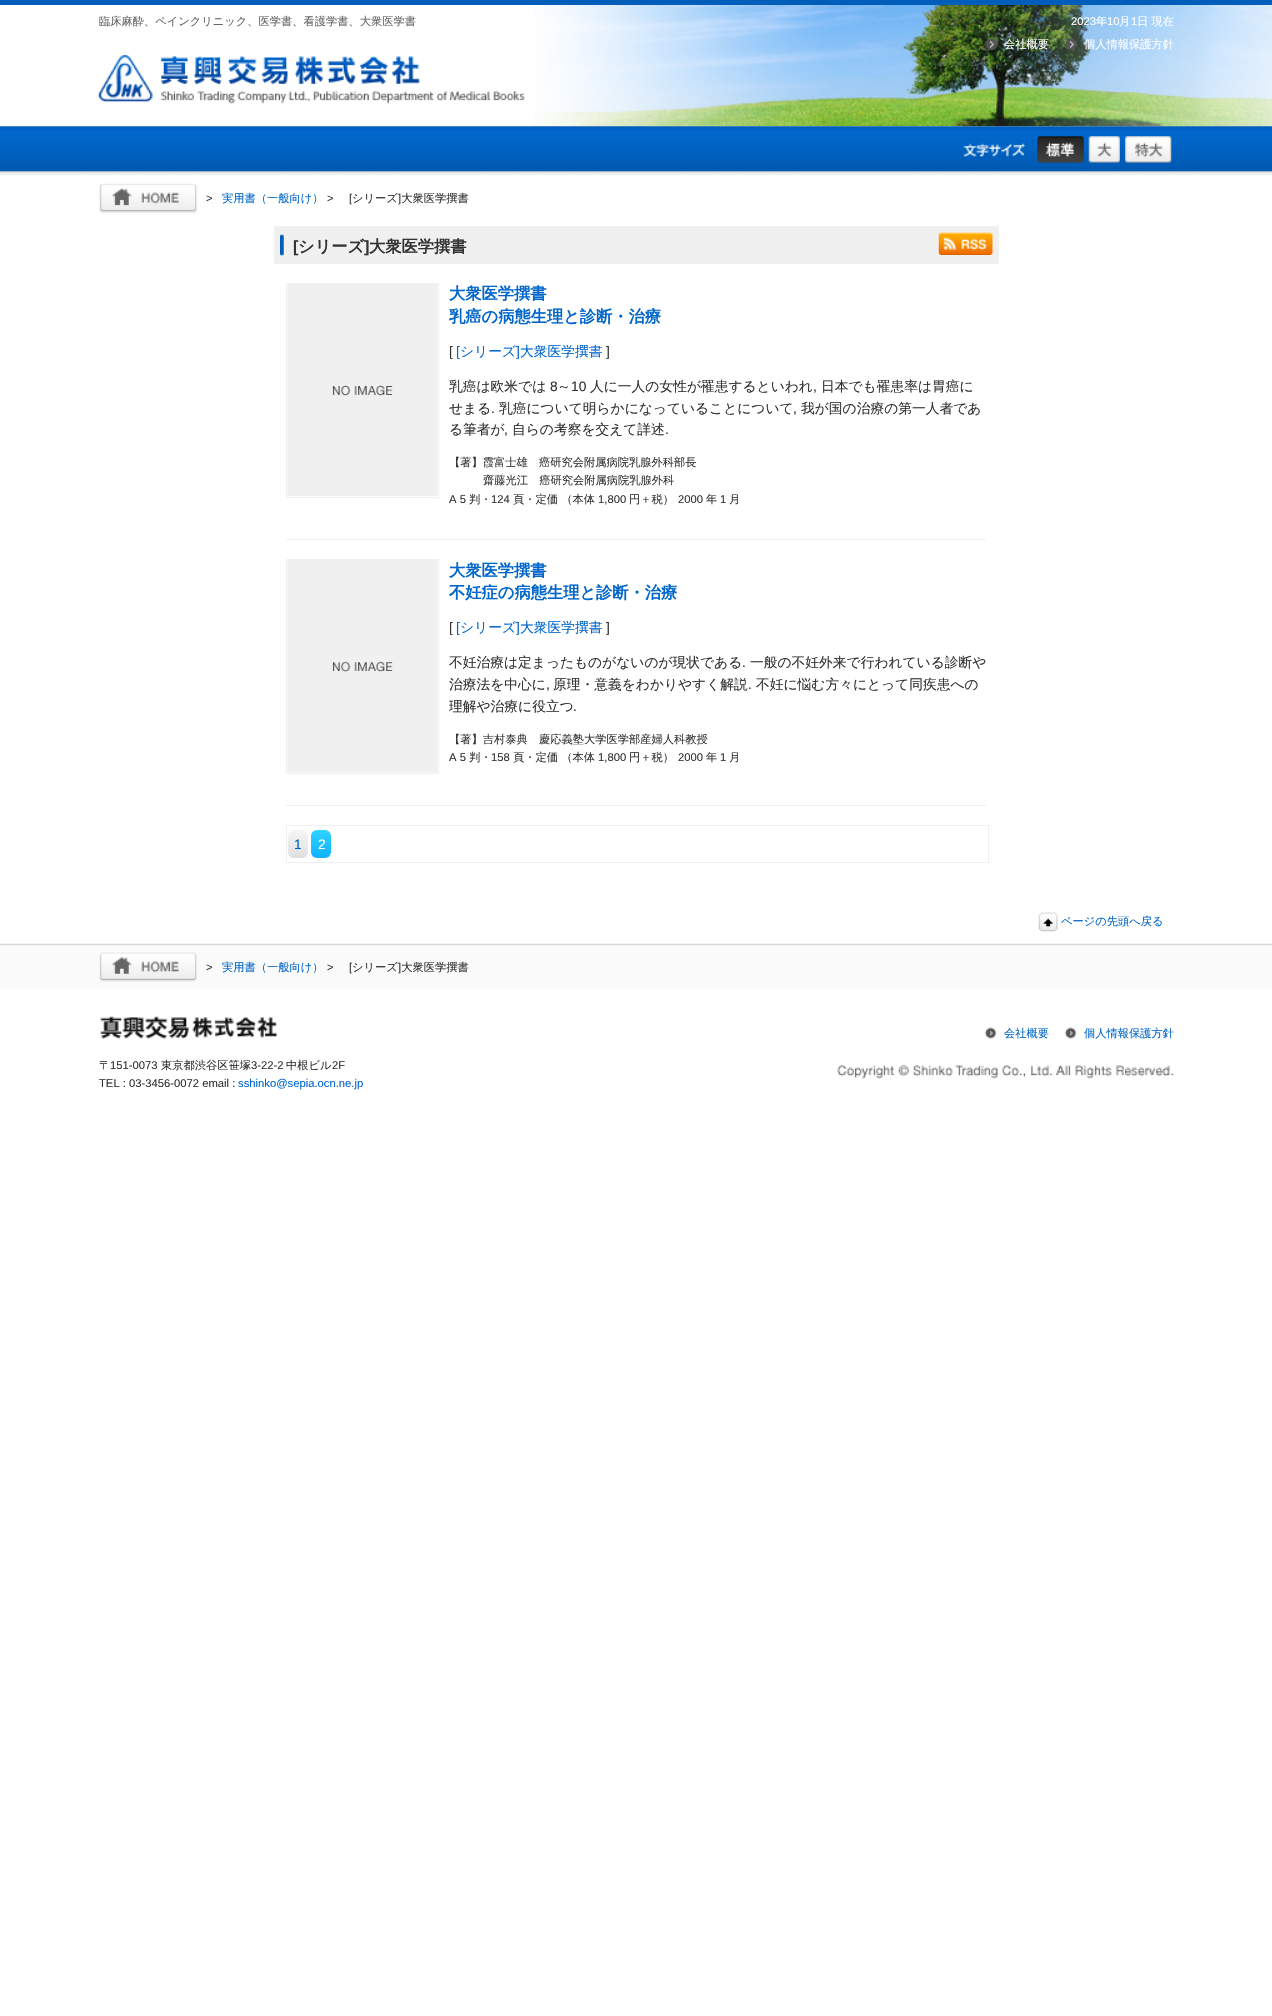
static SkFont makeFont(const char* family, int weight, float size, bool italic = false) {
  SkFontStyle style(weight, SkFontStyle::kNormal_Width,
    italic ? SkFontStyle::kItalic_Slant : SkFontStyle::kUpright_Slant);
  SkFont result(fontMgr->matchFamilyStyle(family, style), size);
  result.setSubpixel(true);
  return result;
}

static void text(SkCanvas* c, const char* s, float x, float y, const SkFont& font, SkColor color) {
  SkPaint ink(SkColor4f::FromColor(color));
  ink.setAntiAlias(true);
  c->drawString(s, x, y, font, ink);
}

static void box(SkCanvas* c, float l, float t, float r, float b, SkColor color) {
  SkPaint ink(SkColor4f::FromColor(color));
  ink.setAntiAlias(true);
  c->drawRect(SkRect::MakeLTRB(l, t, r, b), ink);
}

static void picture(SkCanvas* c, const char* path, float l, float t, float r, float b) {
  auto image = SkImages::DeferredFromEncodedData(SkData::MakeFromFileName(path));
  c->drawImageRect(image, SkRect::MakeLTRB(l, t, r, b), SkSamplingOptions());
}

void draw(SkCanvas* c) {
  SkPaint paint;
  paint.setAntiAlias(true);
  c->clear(0xffffffff);
  picture(c, "img_01.png", 534, 5, 1272, 127);
  box(c, 0, 0, 1272, 5, 0xff005db9);
  SkFont face1 = makeFont("WenQuanYi Zen Hei", 500, 11.25f);
  text(c, "臨床麻酔、ペインクリニック、医学書、看護学書、大衆医学書", 99, 25, face1, 0xff666666);
  picture(c, "img_02.png", 98, 55, 525, 104);
  SkFont face2 = makeFont("Liberation Sans", 400, 11.25f);
  text(c, "2023", 1071, 25, face2, 0xffffffff);
  text(c, "年", 1096, 25, face1, 0xffffffff);
  text(c, "10", 1107, 25, face2, 0xffffffff);
  text(c, "月", 1119, 25, face1, 0xffffffff);
  text(c, "1", 1131, 25, face2, 0xffffffff);
  text(c, "日 現在", 1137, 25, face1, 0xffffffff);
  picture(c, "img_03.png", 985, 37, 998, 50);
  text(c, "会社概要", 1004, 48, face1, 0xffffffff);
  picture(c, "img_04.png", 1065, 38, 1078, 50);
  text(c, "個人情報保護方針", 1084, 48, face1, 0xffffffff);
  picture(c, "img_05.png", 0, 126, 1272, 175);
  picture(c, "img_06.png", 963, 143, 1025, 157);
  picture(c, "img_07.png", 1037, 136, 1084, 163);
  picture(c, "img_08.png", 1088, 136, 1120, 163);
  picture(c, "img_09.png", 1125, 136, 1172, 163);
  picture(c, "img_10.png", 99, 183, 198, 214);
  text(c, "実用書（一般向け）", 222, 202, face1, 0xff0066cc);
  text(c, "[", 349, 202, face2, 0xff333333);
  text(c, "シリーズ 大衆医学撰書", 352, 202, face1, 0xff333333);
  text(c, ">", 206, 202, face2, 0xff333333);
  text(c, ">", 327, 202, face2, 0xff333333);
  text(c, "]", 398, 202, face2, 0xff333333);
  box(c, 274, 226, 999, 264, 0xfff0f0f0);
  picture(c, "img_11.png", 280, 233, 284, 257);
  SkFont face3 = makeFont("Liberation Sans", 700, 16.25f);
  text(c, "[", 293, 252, face3, 0xff333333);
  SkFont face4 = makeFont("WenQuanYi Zen Hei", 700, 16.25f);
  text(c, "シリーズ", 298, 252, face4, 0xff333333);
  text(c, "]", 364, 252, face3, 0xff333333);
  text(c, "大衆医学撰書", 369, 252, face4, 0xff333333);
  picture(c, "img_12.png", 938, 232, 993, 255);
  box(c, 286, 539, 986, 540, 0xfff0f0f0);
  paint.setStyle(SkPaint::kStroke_Style);
  paint.setStrokeWidth(1);
  paint.setColor(0xfff0f0f0);
  c->drawRect(SkRect::MakeLTRB(286.5f, 283.5f, 438.5f, 497.5f), paint);
  picture(c, "img_13.png", 287, 284, 438, 497);
  text(c, "大衆医学撰書", 449, 299, face4, 0xff0066cc);
  text(c, "乳癌の病態生理と診断・治療", 449, 322, face4, 0xff0066cc);
  SkFont face5 = makeFont("Liberation Sans", 400, 13.75f);
  text(c, "[", 449, 356, face5, 0xff333333);
  text(c, "[", 456, 356, face5, 0xff0066cc);
  SkFont face6 = makeFont("WenQuanYi Zen Hei", 500, 13.75f);
  text(c, "シリーズ", 460, 356, face6, 0xff0066cc);
  text(c, "]", 516, 356, face5, 0xff0066cc);
  text(c, "大衆医学撰書", 520, 356, face6, 0xff0066cc);
  text(c, "]", 606, 356, face5, 0xff333333);
  text(c, "乳癌は欧米では", 449, 391, face6, 0xff333333);
  text(c, "8", 550, 391, face5, 0xff333333);
  text(c, "～", 557, 391, face6, 0xff333333);
  text(c, "10", 571, 391, face5, 0xff333333);
  text(c, "人に一人の女性が罹患するといわれ", 590, 391, face6, 0xff333333);
  text(c, "日本でも罹患率は胃癌に", 821, 391, face6, 0xff333333);
  text(c, ",", 813, 391, face5, 0xff333333);
  text(c, "せまる", 449, 413, face6, 0xff333333);
  text(c, ".", 491, 413, face5, 0xff333333);
  text(c, "乳癌について明らかになっていることについて", 499, 413, face6, 0xff333333);
  text(c, ",", 793, 413, face5, 0xff333333);
  text(c, "我が国の治療の第一人者であ", 801, 413, face6, 0xff333333);
  text(c, "る筆者が", 449, 434, face6, 0xff333333);
  text(c, ",", 504, 434, face5, 0xff333333);
  text(c, "自らの考察を交えて詳述", 512, 434, face6, 0xff333333);
  text(c, ".", 665, 434, face5, 0xff333333);
  text(c, "【著】霞富士雄　癌研究会附属病院乳腺外科部長", 449, 466, face1, 0xff333333);
  text(c, "齋藤光江　癌研究会附属病院乳腺外科", 483, 484, face1, 0xff333333);
  text(c, "A 5", 449, 503, face2, 0xff333333);
  text(c, "判・", 469, 503, face1, 0xff333333);
  text(c, "124", 491, 503, face2, 0xff333333);
  text(c, "頁・定価 （本体", 513, 503, face1, 0xff333333);
  text(c, "1,800", 598, 503, face2, 0xff333333);
  text(c, "円＋税）", 629, 503, face1, 0xff333333);
  text(c, "2000", 678, 503, face2, 0xff333333);
  text(c, "年", 706, 503, face1, 0xff333333);
  text(c, "1", 720, 503, face2, 0xff333333);
  text(c, "月", 729, 503, face1, 0xff333333);
  box(c, 286, 805, 986, 806, 0xfff0f0f0);
  c->drawRect(SkRect::MakeLTRB(286.5f, 559.5f, 438.5f, 773.5f), paint);
  picture(c, "img_14.png", 287, 560, 438, 773);
  text(c, "大衆医学撰書", 449, 576, face4, 0xff0066cc);
  text(c, "不妊症の病態生理と診断・治療", 449, 598, face4, 0xff0066cc);
  text(c, "[", 449, 632, face5, 0xff333333);
  text(c, "[", 456, 632, face5, 0xff0066cc);
  text(c, "シリーズ", 460, 632, face6, 0xff0066cc);
  text(c, "]", 516, 632, face5, 0xff0066cc);
  text(c, "大衆医学撰書", 520, 632, face6, 0xff0066cc);
  text(c, "]", 606, 632, face5, 0xff333333);
  text(c, "不妊治療は定まったものがないのが現状である", 449, 667, face6, 0xff333333);
  text(c, ".", 742, 667, face5, 0xff333333);
  text(c, "一般の不妊外来で行われている診断や", 750, 667, face6, 0xff333333);
  text(c, "治療法を中心に", 449, 689, face6, 0xff333333);
  text(c, ",", 546, 689, face5, 0xff333333);
  text(c, "原理・意義をわかりやすく解説", 553, 689, face6, 0xff333333);
  text(c, ".", 748, 689, face5, 0xff333333);
  text(c, "不妊に悩む方々にとって同疾患への", 756, 689, face6, 0xff333333);
  text(c, "理解や治療に役立つ", 449, 711, face6, 0xff333333);
  text(c, ".", 573, 711, face5, 0xff333333);
  text(c, "【著】吉村泰典　慶応義塾大学医学部産婦人科教授", 449, 743, face1, 0xff333333);
  text(c, "A 5", 449, 761, face2, 0xff333333);
  text(c, "判・", 469, 761, face1, 0xff333333);
  text(c, "158", 491, 761, face2, 0xff333333);
  text(c, "頁・定価 （本体", 513, 761, face1, 0xff333333);
  text(c, "1,800", 598, 761, face2, 0xff333333);
  text(c, "円＋税）", 629, 761, face1, 0xff333333);
  text(c, "2000", 678, 761, face2, 0xff333333);
  text(c, "年", 706, 761, face1, 0xff333333);
  text(c, "1", 720, 761, face2, 0xff333333);
  text(c, "月", 729, 761, face1, 0xff333333);
  c->drawRect(SkRect::MakeLTRB(286.5f, 825.5f, 988.5f, 862.5f), paint);
  paint.setStyle(SkPaint::kFill_Style);
  {
    const SkColor colors[] = {0xfff6f6f6, 0xffdfdfdf};
    const float stops[] = {0, 1};
    const SkPoint ends[] = {{288, 830}, {288, 858}};
    paint.setShader(SkGradientShader::MakeLinear(ends, colors, stops, 2, SkTileMode::kClamp));
    paint.setAlpha(255);
  }
  c->drawRoundRect(SkRect::MakeLTRB(288, 830, 308, 858), 6, 6, paint);
  text(c, "1", 294, 849, face5, 0xff0066cc);
  {
    const SkColor colors[] = {0xff30d4ff, 0xff0db1ff};
    const float stops[] = {0, 1};
    const SkPoint ends[] = {{311, 830}, {311, 858}};
    paint.setShader(SkGradientShader::MakeLinear(ends, colors, stops, 2, SkTileMode::kClamp));
    paint.setAlpha(255);
  }
  c->drawRoundRect(SkRect::MakeLTRB(311, 830, 331, 858), 6, 6, paint);
  text(c, "2", 318, 849, face5, 0xffffffff);
  picture(c, "img_15.png", 1038, 912, 1058, 932);
  text(c, "ページの先頭へ戻る", 1061, 925, face1, 0xff0066cc);
  picture(c, "img_16.png", 0, 943, 1272, 990);
  picture(c, "img_17.png", 99, 952, 197, 982);
  text(c, "実用書（一般向け）", 222, 971, face1, 0xff0066cc);
  text(c, "[", 349, 971, face2, 0xff333333);
  text(c, "シリーズ 大衆医学撰書", 352, 971, face1, 0xff333333);
  text(c, ">", 206, 971, face2, 0xff333333);
  text(c, ">", 327, 971, face2, 0xff333333);
  text(c, "]", 398, 971, face2, 0xff333333);
  picture(c, "img_18.png", 985, 1027, 997, 1039);
  text(c, "会社概要", 1004, 1037, face1, 0xff0066cc);
  picture(c, "img_19.png", 1065, 1027, 1077, 1039);
  text(c, "個人情報保護方針", 1084, 1037, face1, 0xff0066cc);
  picture(c, "img_20.png", 837, 1065, 1174, 1079);
  picture(c, "img_21.png", 100, 1016, 278, 1039);
  text(c, "〒", 99, 1069, face1, 0xff333333);
  text(c, "151-0073", 110, 1069, face2, 0xff333333);
  text(c, "東京都渋谷区笹塚", 161, 1069, face1, 0xff333333);
  text(c, "3-22-2", 251, 1069, face2, 0xff333333);
  text(c, "中根ビル", 286, 1069, face1, 0xff333333);
  text(c, "2F", 332, 1069, face2, 0xff333333);
  text(c, "TEL : 03-3456-0072 email :", 99, 1087, face2, 0xff333333);
  text(c, "sshinko@sepia.ocn.ne.jp", 238, 1087, face2, 0xff0066cc);
}
